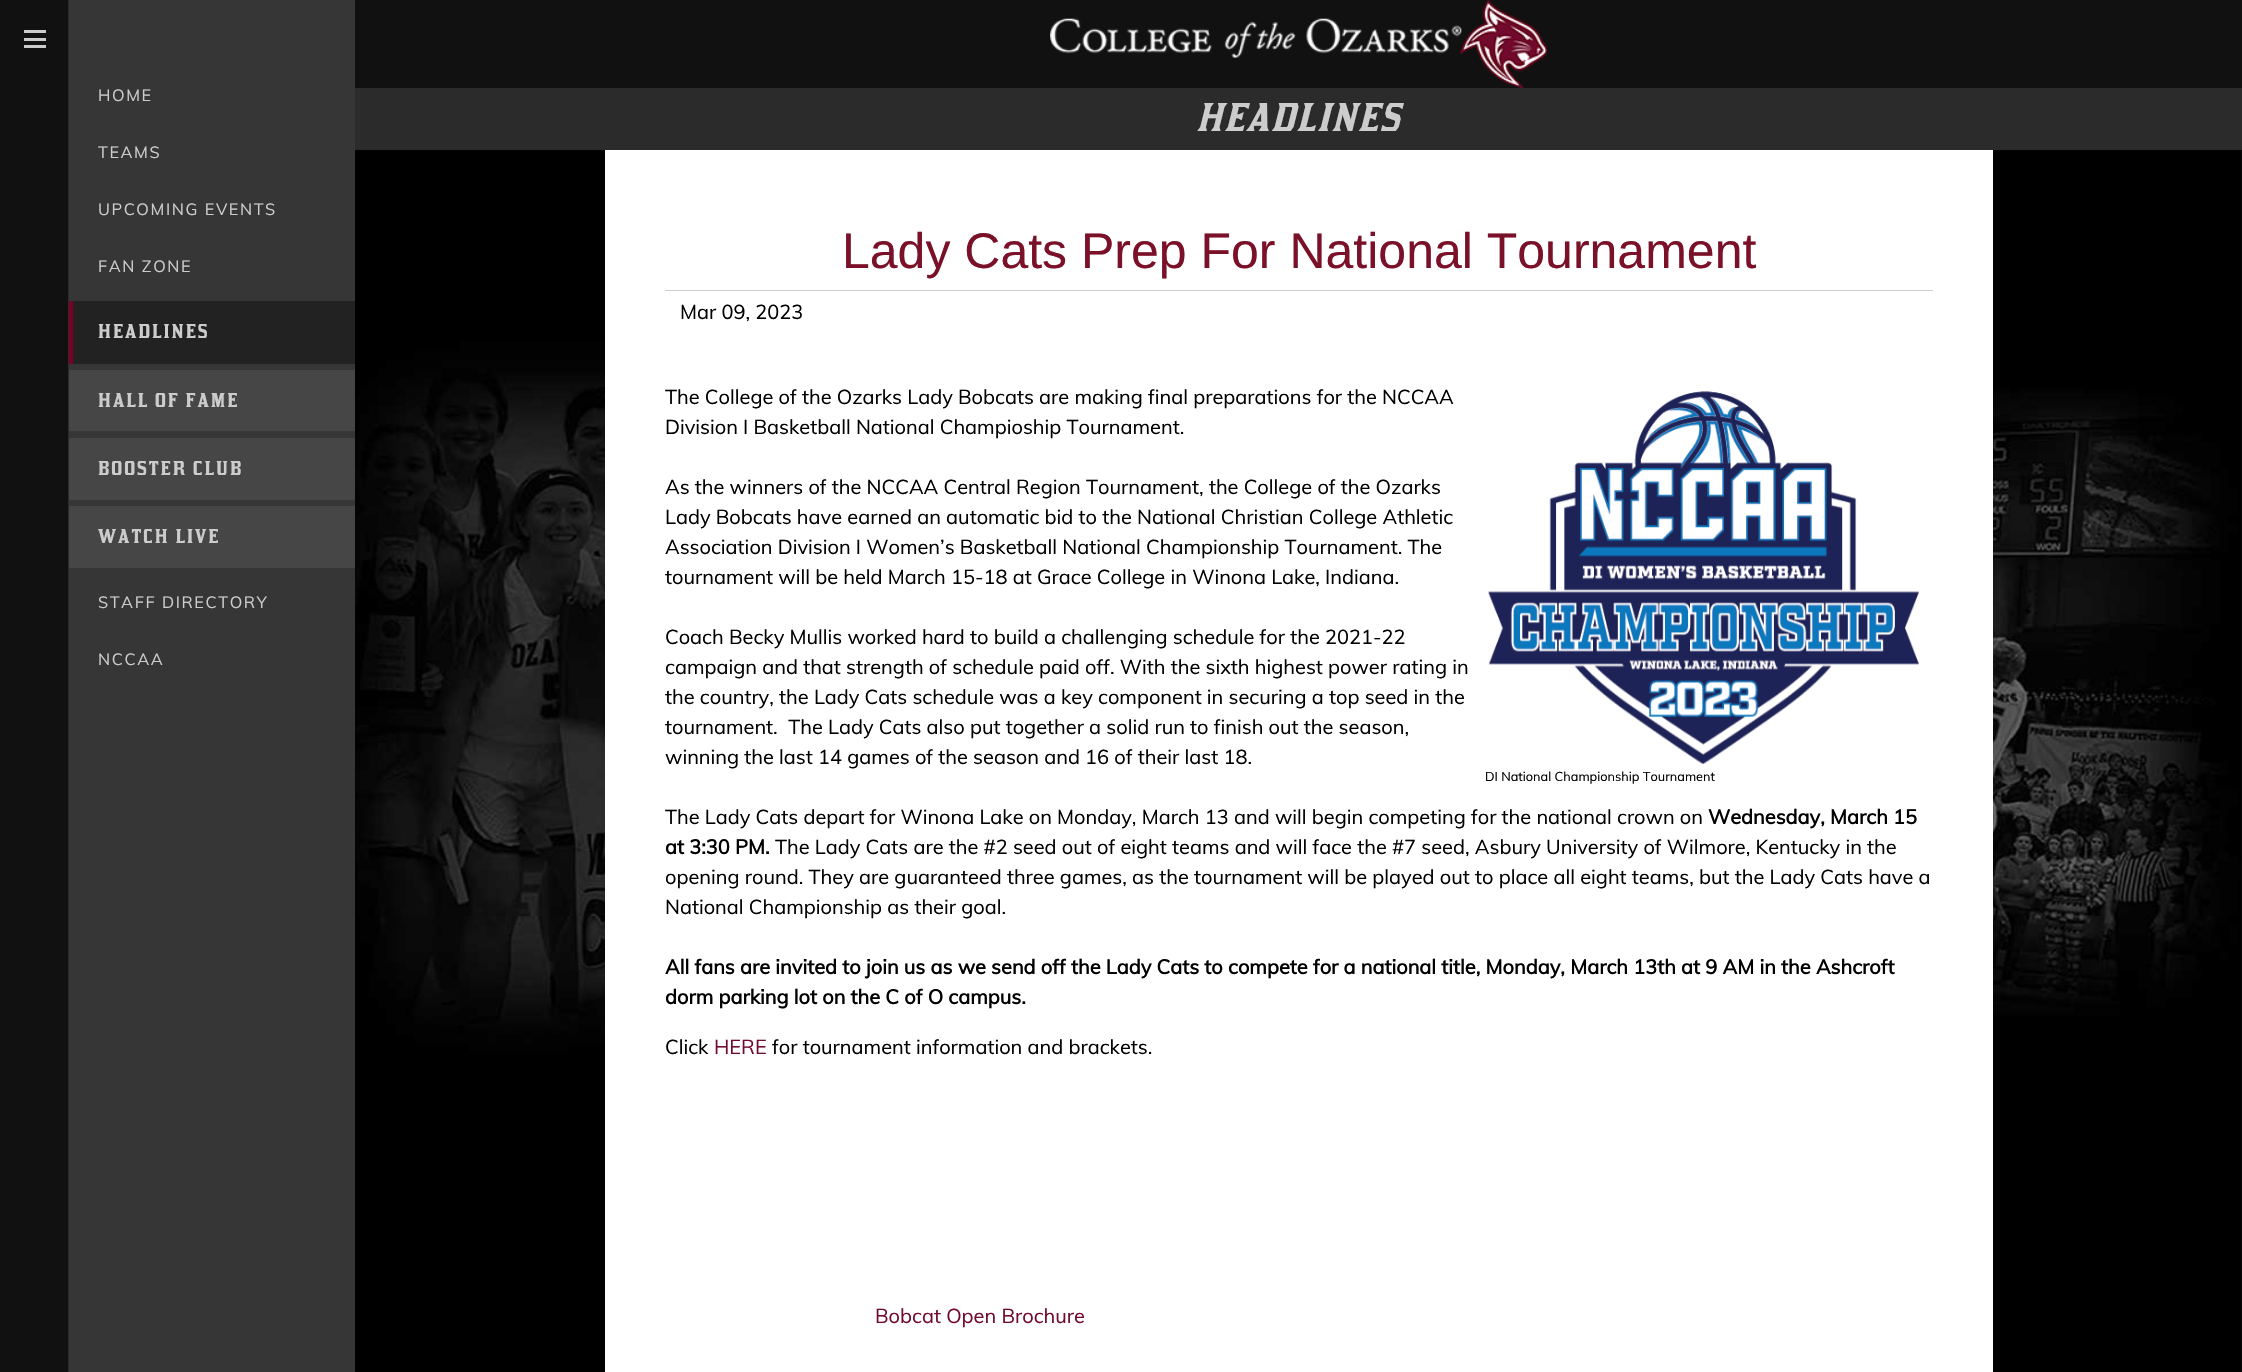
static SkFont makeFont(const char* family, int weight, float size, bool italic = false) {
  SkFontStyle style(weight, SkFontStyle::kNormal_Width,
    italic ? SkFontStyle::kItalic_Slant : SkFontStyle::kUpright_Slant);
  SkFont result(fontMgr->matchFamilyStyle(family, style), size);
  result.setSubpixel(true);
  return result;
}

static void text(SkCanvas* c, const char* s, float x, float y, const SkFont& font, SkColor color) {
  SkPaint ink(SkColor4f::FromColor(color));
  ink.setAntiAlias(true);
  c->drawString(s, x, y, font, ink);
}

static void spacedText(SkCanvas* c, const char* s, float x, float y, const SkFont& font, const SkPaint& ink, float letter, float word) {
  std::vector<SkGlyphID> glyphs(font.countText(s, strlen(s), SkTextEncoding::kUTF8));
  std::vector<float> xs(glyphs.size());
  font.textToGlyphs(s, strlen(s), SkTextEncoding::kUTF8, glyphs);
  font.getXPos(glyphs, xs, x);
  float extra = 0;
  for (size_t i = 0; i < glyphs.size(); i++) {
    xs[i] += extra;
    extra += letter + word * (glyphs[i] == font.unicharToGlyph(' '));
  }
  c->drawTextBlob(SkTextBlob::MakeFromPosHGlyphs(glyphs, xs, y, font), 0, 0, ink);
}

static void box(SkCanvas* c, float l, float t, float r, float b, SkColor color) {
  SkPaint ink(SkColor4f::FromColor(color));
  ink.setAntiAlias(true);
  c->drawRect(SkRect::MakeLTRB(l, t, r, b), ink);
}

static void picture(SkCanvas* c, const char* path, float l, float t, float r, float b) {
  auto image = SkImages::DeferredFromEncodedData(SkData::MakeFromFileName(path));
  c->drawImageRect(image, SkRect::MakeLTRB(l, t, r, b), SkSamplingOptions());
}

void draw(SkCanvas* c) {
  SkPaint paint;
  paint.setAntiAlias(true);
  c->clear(0xffffffff);
  box(c, 0, 0, 68, 1372, 0xff111111);
  box(c, 24, 30, 46, 33, 0xffcccccc);
  box(c, 24, 38, 46, 41, 0xffcccccc);
  box(c, 24, 45, 46, 48, 0xffcccccc);
  box(c, 68, 0, 69, 1372, 0xff2b2b2b);
  box(c, 69, 0, 355, 1372, 0xff363636);
  SkFont face1 = makeFont("Muli", 400, 16.25f);
  paint.setColor(0xffcccccc);
  spacedText(c, "HOME", 98, 101, face1, paint, 1.6f, 0);
  spacedText(c, "TEAMS", 98, 158, face1, paint, 1.6f, 0);
  spacedText(c, "UPCOMING EVENTS", 98, 215, face1, paint, 1.6f, 0);
  spacedText(c, "FAN ZONE", 98, 272, face1, paint, 1.6f, 0);
  box(c, 73, 301, 355, 364, 0xff222222);
  box(c, 69, 301, 73, 364, 0xff7a0026);
  SkFont face2 = makeFont("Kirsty", 400, 20);
  spacedText(c, "HEADLINES", 98, 338, face2, paint, 2, 0);
  box(c, 69, 370, 355, 431, 0xff464646);
  spacedText(c, "HALL OF FAME", 98, 407, face2, paint, 2, 0);
  box(c, 69, 438, 355, 500, 0xff464646);
  spacedText(c, "BOOSTER CLUB", 98, 475, face2, paint, 2, 0);
  box(c, 69, 506, 355, 568, 0xff464646);
  spacedText(c, "WATCH LIVE", 98, 543, face2, paint, 2, 0);
  spacedText(c, "STAFF DIRECTORY", 98, 608, face1, paint, 1.6f, 0);
  spacedText(c, "NCCAA", 98, 665, face1, paint, 1.6f, 0);
  box(c, 355, 0, 2242, 88, 0xff111111);
  picture(c, "img_01.png", 1050, 0, 1547, 88);
  box(c, 355, 88, 2242, 150, 0xff2b2b2b);
  SkFont face3 = makeFont("Kirsty", 400, 40, true);
  spacedText(c, "HEADLINES", 1196, 131, face3, paint, 2, 0);
  picture(c, "img_02.png", 355, 150, 2242, 1372);
  box(c, 605, 150, 1993, 1372, 0xffffffff);
  box(c, 665, 290, 1933, 291, 0xffcccccc);
  SkFont face4 = makeFont("Liberation Sans", 400, 50);
  text(c, "Lady Cats Prep For National Tournament", 842, 268, face4, 0xff7a1129);
  SkFont face5 = makeFont("Muli", 400, 20);
  text(c, "Mar 09, 2023", 680, 319, face5, 0xff000000);
  text(c, "The College of the Ozarks Lady Bobcats are making final preparations for the NCCAA", 665, 404, face5, 0xff000000);
  text(c, "Division I Basketball National Champioship Tournament.", 665, 434, face5, 0xff000000);
  text(c, "As the winners of the NCCAA Central Region Tournament, the College of the Ozarks", 665, 494, face5, 0xff000000);
  text(c, "Lady Bobcats have earned an automatic bid to the National Christian College Athletic", 665, 524, face5, 0xff000000);
  text(c, "Association Division I Women’s Basketball National Championship Tournament. The", 665, 554, face5, 0xff000000);
  text(c, "tournament will be held March 15-18 at Grace College in Winona Lake, Indiana.", 665, 584, face5, 0xff000000);
  text(c, "Coach Becky Mullis worked hard to build a challenging schedule for the 2021-22", 665, 644, face5, 0xff000000);
  text(c, "campaign and that strength of schedule paid off. With the sixth highest power rating in", 665, 674, face5, 0xff000000);
  text(c, "the country, the Lady Cats schedule was a key component in securing a top seed in the", 665, 704, face5, 0xff000000);
  text(c, "tournament.  The Lady Cats also put together a solid run to finish out the season,", 665, 734, face5, 0xff000000);
  text(c, "winning the last 14 games of the season and 16 of their last 18.", 665, 764, face5, 0xff000000);
  text(c, "The Lady Cats depart for Winona Lake on Monday, March 13 and will begin competing for the national crown on", 665, 824, face5, 0xff000000);
  SkFont face6 = makeFont("Muli", 700, 20);
  text(c, "Wednesday, March 15", 1708, 824, face6, 0xff000000);
  text(c, "at 3:30 PM.", 665, 854, face6, 0xff000000);
  text(c, "The Lady Cats are the #2 seed out of eight teams and will face the #7 seed, Asbury University of Wilmore, Kentucky in the", 775, 854, face5, 0xff000000);
  text(c, "opening round. They are guaranteed three games, as the tournament will be played out to place all eight teams, but the Lady Cats have a", 665, 884, face5, 0xff000000);
  text(c, "National Championship as their goal.", 665, 914, face5, 0xff000000);
  text(c, "All fans are invited to join us as we send off the Lady Cats to compete for a national title, Monday, March 13th at 9 AM in the Ashcroft", 665, 974, face6, 0xff000000);
  text(c, "dorm parking lot on the C of O campus.", 665, 1004, face6, 0xff000000);
  picture(c, "img_03.png", 1487, 391, 1919, 764);
  SkFont face7 = makeFont("Muli", 400, 12.75f);
  text(c, "DI National Championship Tournament", 1485, 781, face7, 0xff000000);
  text(c, "Click", 665, 1054, face5, 0xff000000);
  text(c, "HERE", 714, 1054, face5, 0xff710a2c);
  text(c, "for tournament information and brackets.", 772, 1054, face5, 0xff000000);
  text(c, "Bobcat Open Brochure", 875, 1323, face5, 0xff710a2c);
}
